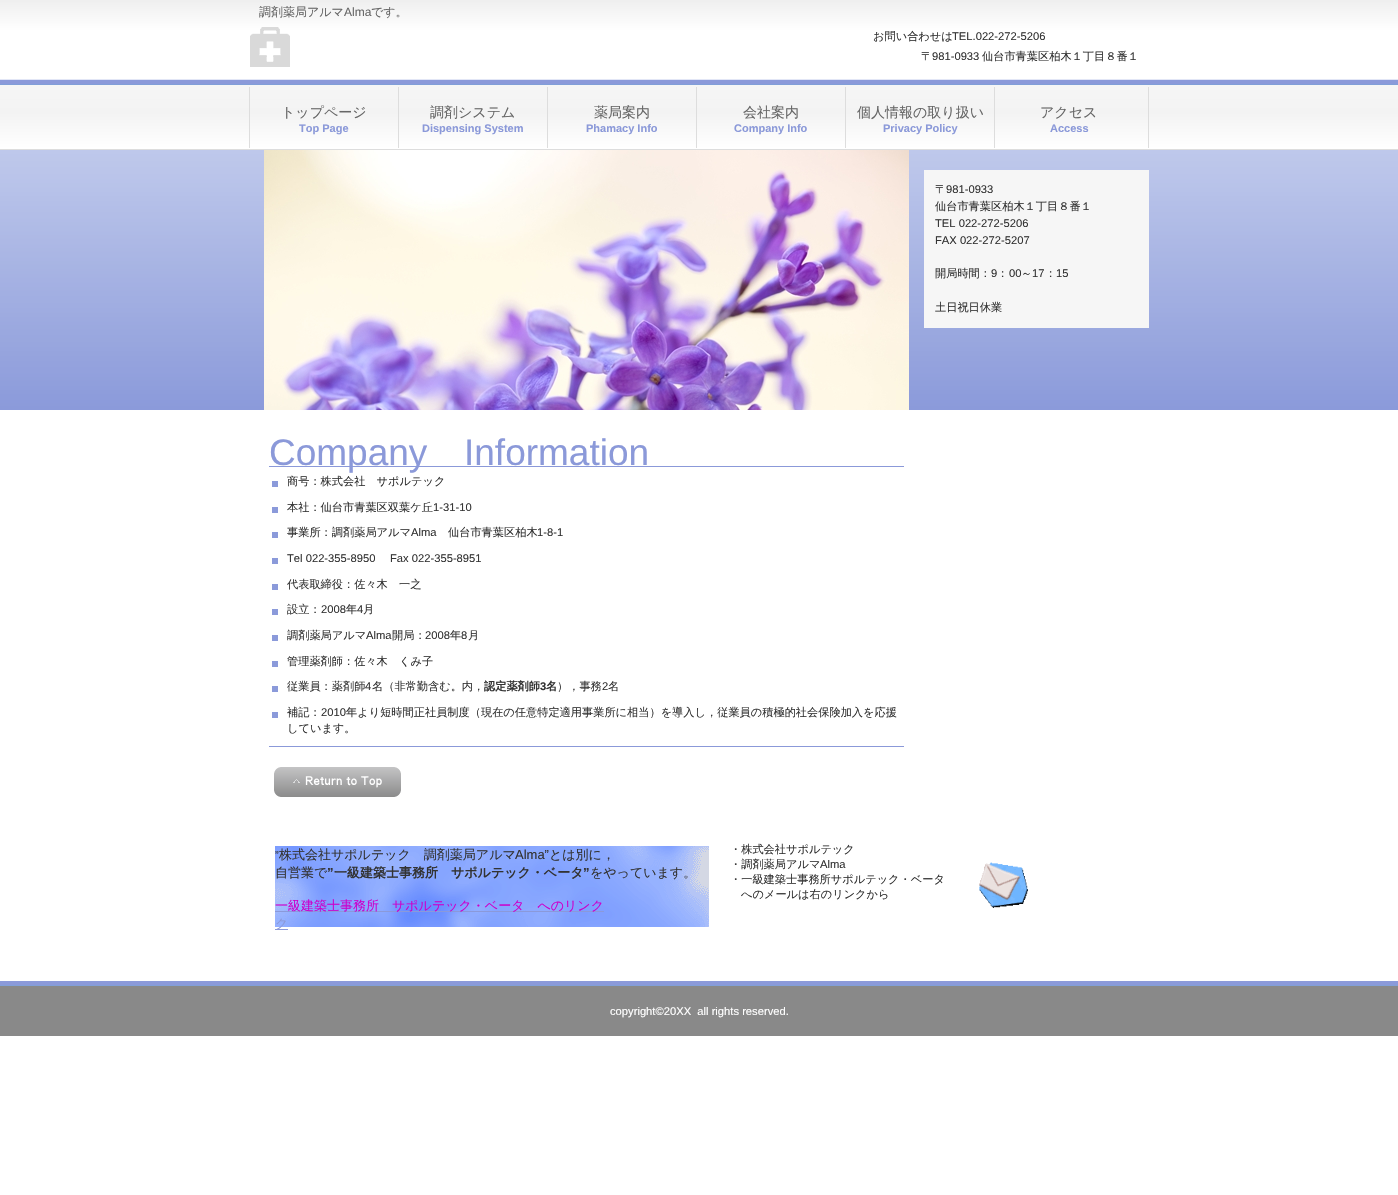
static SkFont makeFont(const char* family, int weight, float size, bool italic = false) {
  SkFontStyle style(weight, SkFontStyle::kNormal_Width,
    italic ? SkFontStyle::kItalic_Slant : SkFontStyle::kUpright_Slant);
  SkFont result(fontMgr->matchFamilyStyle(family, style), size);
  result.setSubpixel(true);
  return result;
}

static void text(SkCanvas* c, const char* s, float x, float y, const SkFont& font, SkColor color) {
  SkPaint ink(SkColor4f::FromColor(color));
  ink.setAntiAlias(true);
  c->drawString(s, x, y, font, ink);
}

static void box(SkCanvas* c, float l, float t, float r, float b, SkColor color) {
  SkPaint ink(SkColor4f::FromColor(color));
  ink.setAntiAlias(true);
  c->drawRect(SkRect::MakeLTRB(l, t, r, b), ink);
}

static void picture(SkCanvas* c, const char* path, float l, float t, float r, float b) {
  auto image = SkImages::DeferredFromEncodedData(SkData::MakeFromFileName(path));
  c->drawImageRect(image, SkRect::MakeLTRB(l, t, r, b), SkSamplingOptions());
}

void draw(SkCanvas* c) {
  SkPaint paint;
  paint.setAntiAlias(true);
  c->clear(0xffffffff);
  picture(c, "img_01.png", 0, 0, 1398, 410);
  picture(c, "img_02.png", 0, 981, 1398, 1036);
  SkFont face1 = makeFont("WenQuanYi Zen Hei", 500, 12);
  text(c, "調剤薬局アルマ", 259, 16, face1, 0xff666666);
  SkFont face2 = makeFont("Liberation Sans", 400, 12);
  text(c, "Alma", 344, 16, face2, 0xff666666);
  text(c, "です。", 371, 16, face1, 0xff666666);
  picture(c, "img_03.png", 250, 27, 290, 67);
  SkFont face3 = makeFont("WenQuanYi Zen Hei", 500, 11.2f);
  text(c, "お問い合わせは", 873, 40, face3, 0xff333333);
  SkFont face4 = makeFont("Liberation Sans", 400, 11.2f);
  text(c, "TEL.022-272-5206", 952, 40, face4, 0xff333333);
  text(c, "〒", 921, 60, face3, 0xff333333);
  text(c, "981-0933", 932, 60, face4, 0xff333333);
  text(c, "仙台市青葉区柏木１丁目８番１", 982, 60, face3, 0xff333333);
  box(c, 1148, 87, 1149, 148, 0xffdddddd);
  box(c, 249, 87, 250, 148, 0xffdddddd);
  SkFont face5 = makeFont("WenQuanYi Zen Hei", 500, 14);
  text(c, "トップページ", 281, 117, face5, 0xff666666);
  SkFont face6 = makeFont("Liberation Sans", 700, 11);
  text(c, "Top Page", 299, 132, face6, 0xff8b99d9);
  box(c, 398, 87, 399, 148, 0xffdddddd);
  text(c, "調剤システム", 430, 117, face5, 0xff666666);
  text(c, "Dispensing System", 422, 132, face6, 0xff8b99d9);
  box(c, 547, 87, 548, 148, 0xffdddddd);
  text(c, "薬局案内", 594, 117, face5, 0xff666666);
  text(c, "Phamacy Info", 586, 132, face6, 0xff8b99d9);
  box(c, 696, 87, 697, 148, 0xffdddddd);
  text(c, "会社案内", 743, 117, face5, 0xff666666);
  text(c, "Company Info", 734, 132, face6, 0xff8b99d9);
  box(c, 845, 87, 846, 148, 0xffdddddd);
  text(c, "個人情報の取り扱い", 857, 117, face5, 0xff666666);
  text(c, "Privacy Policy", 883, 132, face6, 0xff8b99d9);
  box(c, 994, 87, 995, 148, 0xffdddddd);
  text(c, "アクセス", 1040, 117, face5, 0xff666666);
  text(c, "Access", 1050, 132, face6, 0xff8b99d9);
  box(c, 924, 170, 1149, 328, 0xfff6f6f6);
  text(c, "〒", 935, 193, face3, 0xff333333);
  text(c, "981-0933", 946, 193, face4, 0xff333333);
  text(c, "仙台市青葉区柏木１丁目８番１", 935, 210, face3, 0xff333333);
  text(c, "TEL 022-272-5206", 935, 227, face4, 0xff333333);
  text(c, "FAX 022-272-5207", 935, 244, face4, 0xff333333);
  text(c, "開局時間：", 935, 277, face3, 0xff333333);
  text(c, "9", 991, 277, face4, 0xff333333);
  text(c, "：", 997, 277, face3, 0xff333333);
  text(c, "00", 1009, 277, face4, 0xff333333);
  text(c, "～", 1021, 277, face3, 0xff333333);
  text(c, "17", 1032, 277, face4, 0xff333333);
  text(c, "：", 1045, 277, face3, 0xff333333);
  text(c, "15", 1056, 277, face4, 0xff333333);
  text(c, "土日祝日休業", 935, 311, face3, 0xff333333);
  picture(c, "img_04.png", 264, 150, 909, 410);
  box(c, 269, 746, 904, 747, 0xff8b99d9);
  box(c, 269, 466, 904, 467, 0xff8b99d9);
  SkFont face7 = makeFont("Liberation Sans", 400, 37);
  text(c, "Company", 269, 465, face7, 0xff8b99d9);
  text(c, "Information", 464, 465, face7, 0xff8b99d9);
  box(c, 272, 481, 278, 487, 0xff8b9ada);
  text(c, "商号：株式会社　サポルテック", 287, 485, face3, 0xff333333);
  box(c, 272, 507, 278, 513, 0xff8b9ada);
  text(c, "本社：仙台市青葉区双葉ケ丘", 287, 511, face3, 0xff333333);
  text(c, "1-31-10", 433, 511, face4, 0xff333333);
  box(c, 272, 532, 278, 538, 0xff8b9ada);
  text(c, "事業所：調剤薬局アルマ", 287, 536, face3, 0xff333333);
  text(c, "Alma", 411, 536, face4, 0xff333333);
  text(c, "仙台市青葉区柏木", 448, 536, face3, 0xff333333);
  text(c, "1-8-1", 537, 536, face4, 0xff333333);
  box(c, 272, 558, 278, 564, 0xff8b9ada);
  text(c, "Tel 022-355-8950", 287, 562, face4, 0xff333333);
  text(c, "Fax 022-355-8951", 390, 562, face4, 0xff333333);
  box(c, 272, 584, 278, 590, 0xff8b9ada);
  text(c, "代表取締役：佐々木　一之", 287, 588, face3, 0xff333333);
  box(c, 272, 609, 278, 615, 0xff8b9ada);
  text(c, "設立：", 287, 613, face3, 0xff333333);
  text(c, "2008", 321, 613, face4, 0xff333333);
  text(c, "年", 346, 613, face3, 0xff333333);
  text(c, "4", 357, 613, face4, 0xff333333);
  text(c, "月", 363, 613, face3, 0xff333333);
  box(c, 272, 635, 278, 641, 0xff8b9ada);
  text(c, "調剤薬局アルマ", 287, 639, face3, 0xff333333);
  text(c, "Alma", 366, 639, face4, 0xff333333);
  text(c, "開局：", 392, 639, face3, 0xff333333);
  text(c, "2008", 425, 639, face4, 0xff333333);
  text(c, "年", 450, 639, face3, 0xff333333);
  text(c, "8", 461, 639, face4, 0xff333333);
  text(c, "月", 468, 639, face3, 0xff333333);
  box(c, 272, 661, 278, 667, 0xff8b9ada);
  text(c, "管理薬剤師：佐々木　くみ子", 287, 665, face3, 0xff333333);
  box(c, 272, 686, 278, 692, 0xff8b9ada);
  text(c, "従業員：薬剤師", 287, 690, face3, 0xff333333);
  text(c, "4", 365, 690, face4, 0xff333333);
  text(c, "名（非常勤含む。内，", 372, 690, face3, 0xff333333);
  SkFont face8 = makeFont("WenQuanYi Zen Hei", 700, 11.2f);
  text(c, "認定薬剤師", 484, 690, face8, 0xff333333);
  SkFont face9 = makeFont("Liberation Sans", 700, 11.2f);
  text(c, "3", 540, 690, face9, 0xff333333);
  text(c, "名", 546, 690, face8, 0xff333333);
  text(c, "），事務", 557, 690, face3, 0xff333333);
  text(c, "2", 602, 690, face4, 0xff333333);
  text(c, "名", 608, 690, face3, 0xff333333);
  box(c, 272, 712, 278, 718, 0xff8b9ada);
  text(c, "補記：", 287, 716, face3, 0xff333333);
  text(c, "2010", 321, 716, face4, 0xff333333);
  text(c, "年より短時間正社員制度（現在の任意特定適用事業所に相当）を導入し，従業員の積極的社会保険加入を応援", 346, 716, face3, 0xff333333);
  text(c, "しています。", 287, 732, face3, 0xff333333);
  picture(c, "img_05.png", 274, 767, 401, 797);
  text(c, "copyright©20XX  all rights reserved.", 610, 1015, face4, 0xffffffff);
  picture(c, "img_06.png", 275, 846, 709, 927);
  text(c, "”", 275, 859, face4, 0xff333333);
  SkFont face10 = makeFont("WenQuanYi Zen Hei", 500, 13);
  text(c, "株式会社サポルテック　調剤薬局アルマ", 279, 859, face10, 0xff333333);
  SkFont face11 = makeFont("Liberation Sans", 400, 13);
  text(c, "Alma”", 515, 859, face11, 0xff333333);
  text(c, "とは別に，", 549, 859, face10, 0xff333333);
  text(c, "自営業で", 275, 877, face10, 0xff333333);
  SkFont face12 = makeFont("Liberation Sans", 700, 13);
  text(c, "”", 327, 877, face12, 0xff333333);
  SkFont face13 = makeFont("WenQuanYi Zen Hei", 700, 13);
  text(c, "一級建築士事務所　サポルテック・ベータ", 334, 877, face13, 0xff333333);
  text(c, "”", 583, 877, face12, 0xff333333);
  text(c, "をやっています。", 590, 877, face10, 0xff333333);
  box(c, 275, 911, 604, 912, 0xff8b99d9);
  text(c, "一級建築士事務所　サポルテック・ベータ　へのリンク", 275, 910, face10, 0xffcc00cc);
  box(c, 275, 929, 288, 930, 0xff8b99d9);
  text(c, "ク", 275, 928, face10, 0xff8b99d9);
  text(c, "・株式会社サポルテック", 730, 853, face3, 0xff333333);
  text(c, "・調剤薬局アルマ", 730, 868, face3, 0xff333333);
  text(c, "Alma", 820, 868, face4, 0xff333333);
  picture(c, "img_07.png", 979, 862, 1028, 908);
  text(c, "・一級建築士事務所サポルテック・ベータ", 730, 883, face3, 0xff333333);
  text(c, "へのメールは右のリンクから", 741, 898, face3, 0xff333333);
}
